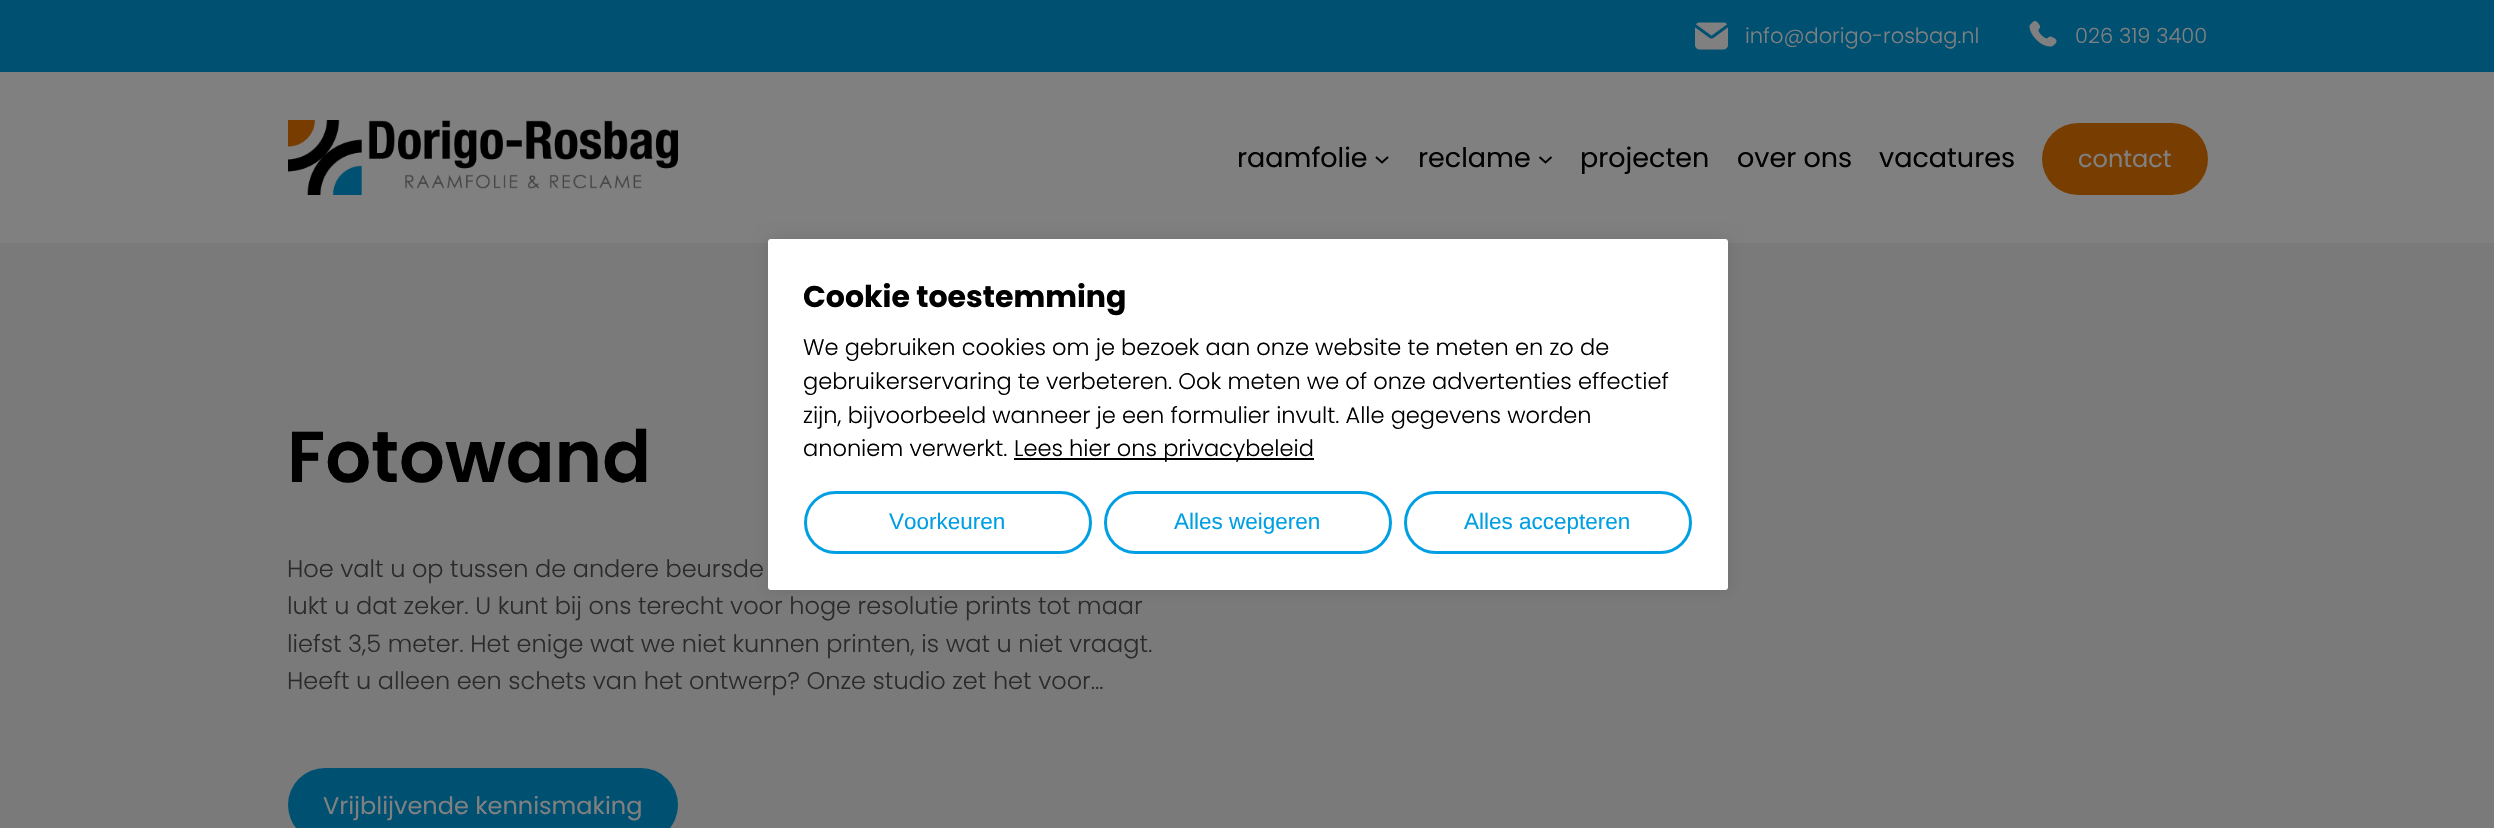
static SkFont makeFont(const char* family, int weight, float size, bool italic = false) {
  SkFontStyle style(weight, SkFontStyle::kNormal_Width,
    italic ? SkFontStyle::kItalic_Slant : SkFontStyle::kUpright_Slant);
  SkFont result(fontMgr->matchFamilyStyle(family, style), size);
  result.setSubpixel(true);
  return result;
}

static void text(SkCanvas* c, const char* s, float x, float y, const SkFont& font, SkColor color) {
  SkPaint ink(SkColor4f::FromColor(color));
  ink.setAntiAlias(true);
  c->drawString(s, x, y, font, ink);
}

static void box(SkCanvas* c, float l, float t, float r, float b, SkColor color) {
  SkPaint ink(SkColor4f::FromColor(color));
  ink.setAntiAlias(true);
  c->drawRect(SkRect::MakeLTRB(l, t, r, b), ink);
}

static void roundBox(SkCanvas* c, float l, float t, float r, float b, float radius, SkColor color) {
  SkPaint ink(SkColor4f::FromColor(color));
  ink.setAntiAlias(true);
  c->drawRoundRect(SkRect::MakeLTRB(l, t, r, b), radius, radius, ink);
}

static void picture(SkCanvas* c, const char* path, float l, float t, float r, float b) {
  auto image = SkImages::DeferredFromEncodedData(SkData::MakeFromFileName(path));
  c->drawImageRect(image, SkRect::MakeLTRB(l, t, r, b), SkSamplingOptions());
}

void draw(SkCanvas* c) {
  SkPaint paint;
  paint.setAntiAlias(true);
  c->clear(0xff808080);
  box(c, 0, 0, 2494, 72, 0xff005072);
  picture(c, "img_01.png", 1695, 22, 1728, 50);
  SkFont face1 = makeFont("Poppins", 300, 21);
  text(c, "info@dorigo-rosbag.nl", 1745, 43, face1, 0xff808080);
  picture(c, "img_02.png", 2029, 21, 2057, 47);
  text(c, "026 319 3400", 2075, 43, face1, 0xff808080);
  picture(c, "img_03.png", 288, 120, 678, 195);
  SkFont face2 = makeFont("Poppins", 400, 27);
  text(c, "raamfolie", 1237, 167, face2, 0xff000000);
  paint.setStyle(SkPaint::kStroke_Style);
  paint.setStrokeWidth(2);
  paint.setColor(0xff000000);
  c->drawPath(SkPathBuilder().moveTo(1376, 157).lineTo(1382, 162.5f).lineTo(1388, 157).detach(), paint);
  text(c, "reclame", 1418, 167, face2, 0xff000000);
  c->drawPath(SkPathBuilder().moveTo(1539.5f, 157).lineTo(1545.5f, 162.5f).lineTo(1551.5f, 157).detach(), paint);
  text(c, "projecten", 1580, 167, face2, 0xff000000);
  text(c, "over ons", 1737, 167, face2, 0xff000000);
  text(c, "vacatures", 1879, 167, face2, 0xff000000);
  roundBox(c, 2042, 123, 2208, 195, 36, 0xff783d00);
  SkFont face3 = makeFont("Poppins", 400, 24);
  text(c, "contact", 2078, 167, face3, 0xff808080);
  box(c, 0, 243, 2494, 828, 0xff7a7a7a);
  SkFont face4 = makeFont("Poppins", 600, 72);
  text(c, "Fotowand", 287, 482, face4, 0xff000000);
  SkFont face5 = makeFont("Poppins", 300, 24);
  text(c, "Hoe valt u op tussen de andere beursde", 287, 577, face5, 0xff2b2b2b);
  text(c, "lukt u dat zeker. U kunt bij ons terecht voor hoge resolutie prints tot maar", 287, 614, face5, 0xff2b2b2b);
  text(c, "liefst 3,5 meter. Het enige wat we niet kunnen printen, is wat u niet vraagt.", 287, 652, face5, 0xff2b2b2b);
  text(c, "Heeft u alleen een schets van het ontwerp? Onze studio zet het voor…", 287, 689, face5, 0xff2b2b2b);
  roundBox(c, 288, 768, 678, 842, 37, 0xff005072);
  text(c, "Vrijblijvende kennismaking", 323, 814, face3, 0xff808080);
  paint.setStyle(SkPaint::kFill_Style);
  paint.setColor(0x1a000000);
  paint.setMaskFilter(SkMaskFilter::MakeBlur(kNormal_SkBlurStyle, 7.5f));
  c->drawRoundRect(SkRect::MakeLTRB(768, 239, 1728, 590), 3, 3, paint);
  paint.setMaskFilter(nullptr);
  roundBox(c, 768, 239, 1728, 590, 3, 0xffffffff);
  SkFont face6 = makeFont("Poppins", 700, 30);
  text(c, "Cookie toestemming", 803, 307, face6, 0xff000000);
  SkFont face7 = makeFont("Poppins", 300, 22.5f);
  text(c, "We gebruiken cookies om je bezoek aan onze website te meten en zo de", 803, 355, face7, 0xff000000);
  text(c, "gebruikerservaring te verbeteren. Ook meten we of onze advertenties effectief", 803, 389, face7, 0xff000000);
  text(c, "zijn, bijvoorbeeld wanneer je een formulier invult. Alle gegevens worden", 803, 423, face7, 0xff000000);
  text(c, "anoniem verwerkt.", 803, 456, face7, 0xff000000);
  box(c, 1014, 458, 1314, 460, 0xff000000);
  text(c, "Lees hier ons privacybeleid", 1014, 456, face7, 0xff000000);
  paint.setStyle(SkPaint::kStroke_Style);
  paint.setStrokeWidth(3);
  paint.setColor(0xff009fe3);
  c->drawRoundRect(SkRect::MakeLTRB(805.5f, 492.5f, 1090.5f, 552.5f), 30, 30, paint);
  SkFont face8 = makeFont("Liberation Sans", 400, 22.5f);
  text(c, "Voorkeuren", 889, 529, face8, 0xff009fe3);
  c->drawRoundRect(SkRect::MakeLTRB(1105.5f, 492.5f, 1390.5f, 552.5f), 30, 30, paint);
  text(c, "Alles weigeren", 1174, 529, face8, 0xff009fe3);
  c->drawRoundRect(SkRect::MakeLTRB(1405.5f, 492.5f, 1690.5f, 552.5f), 30, 30, paint);
  text(c, "Alles accepteren", 1464, 529, face8, 0xff009fe3);
}
